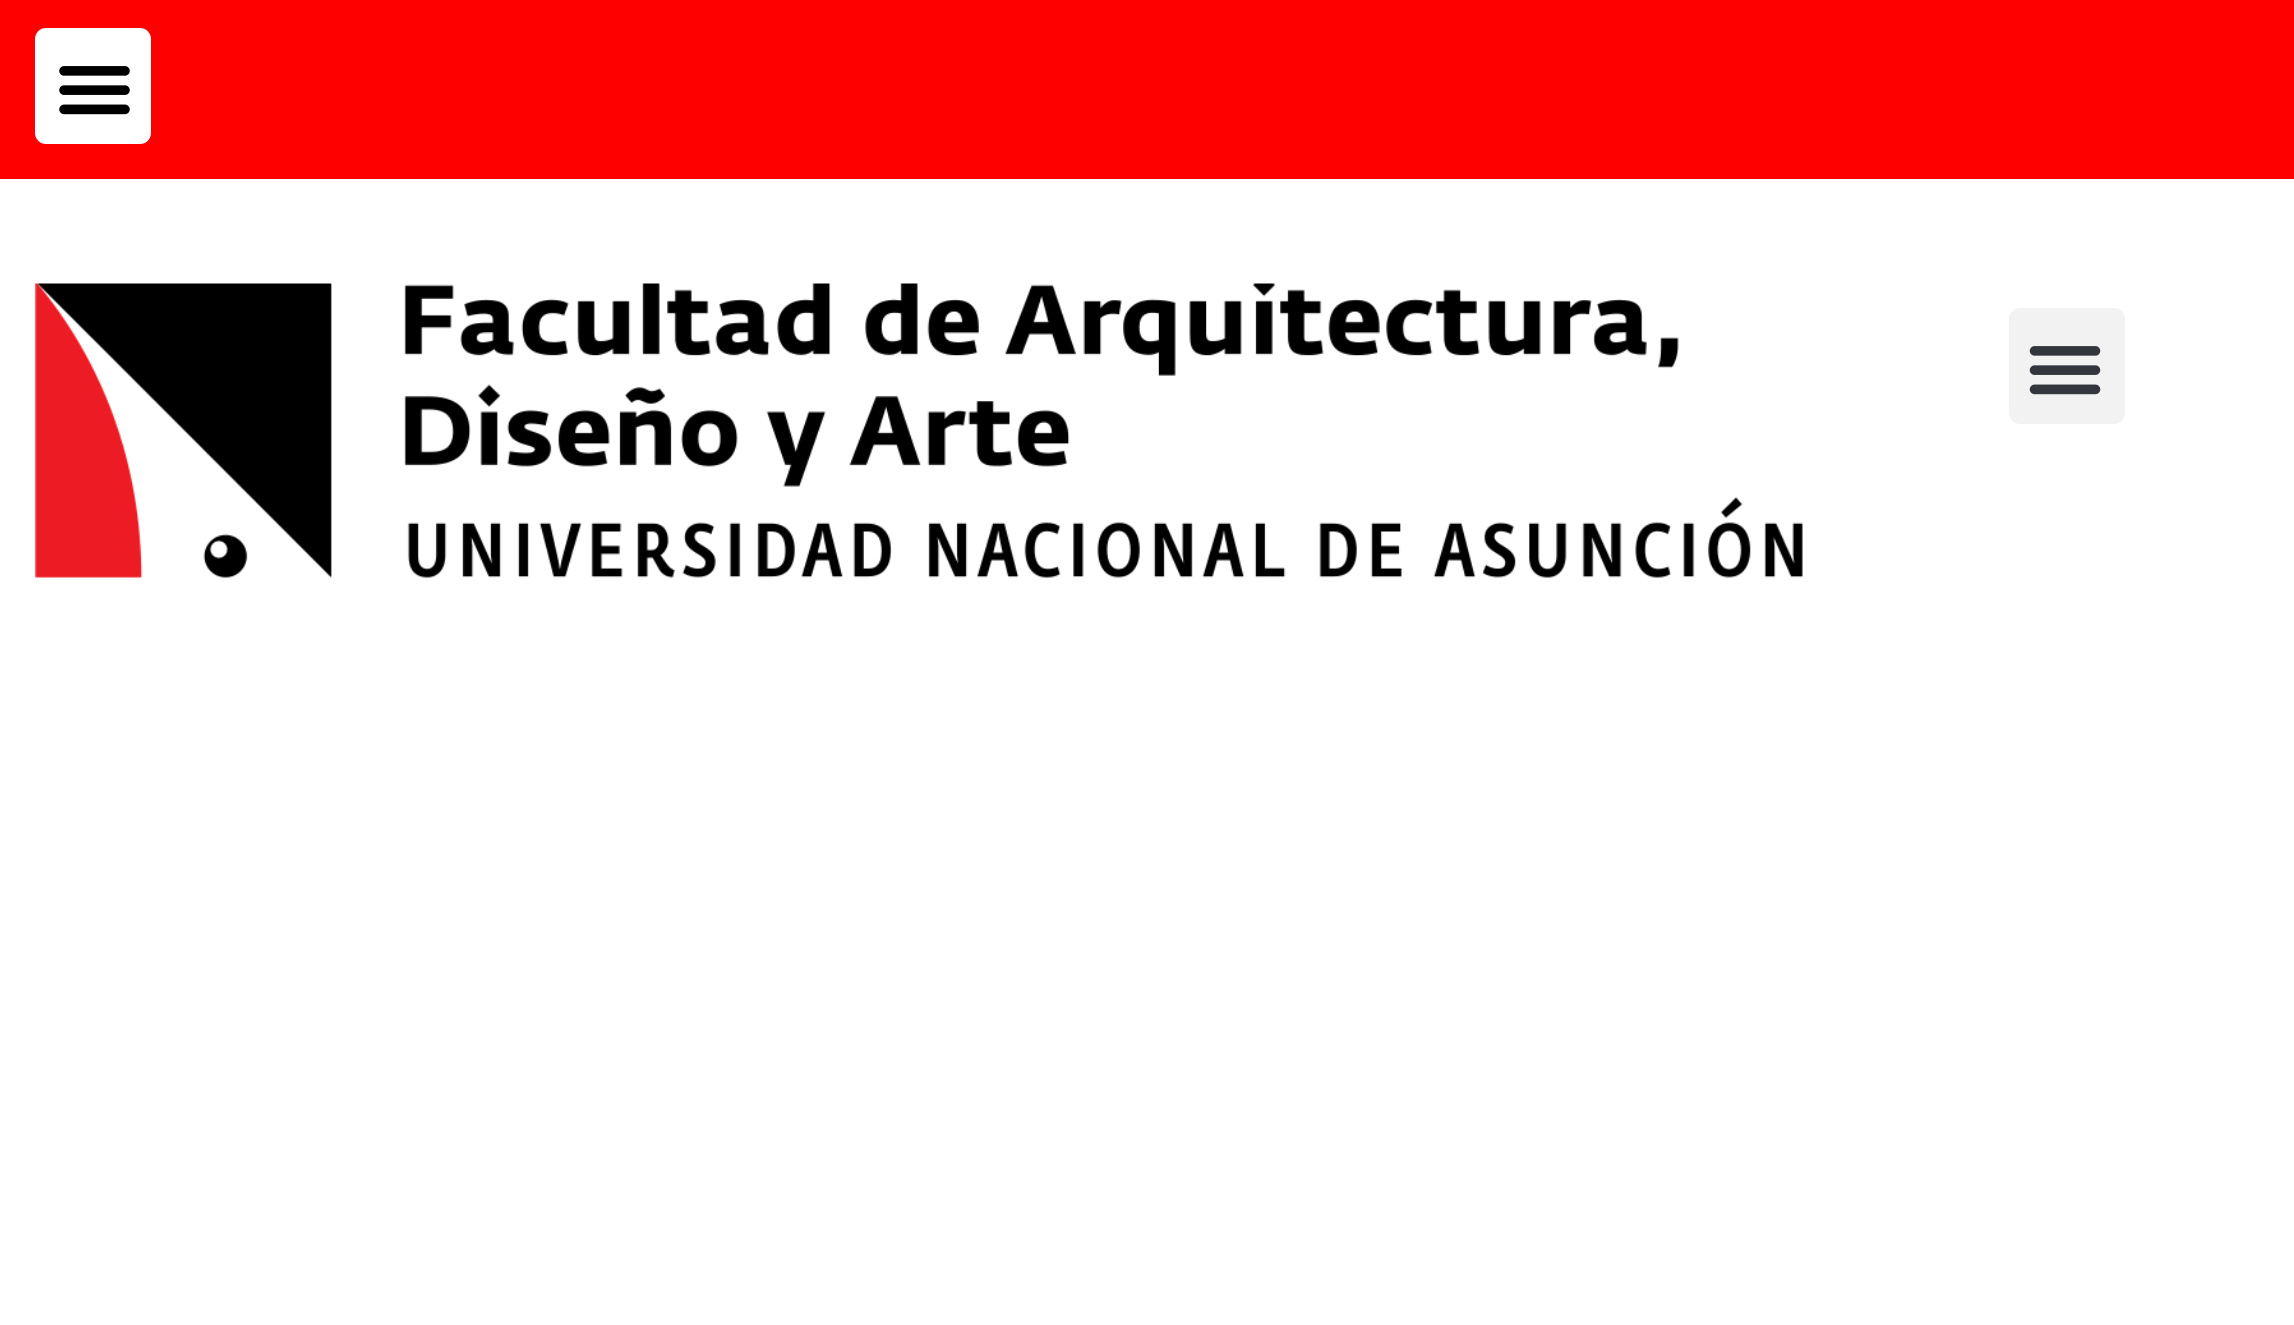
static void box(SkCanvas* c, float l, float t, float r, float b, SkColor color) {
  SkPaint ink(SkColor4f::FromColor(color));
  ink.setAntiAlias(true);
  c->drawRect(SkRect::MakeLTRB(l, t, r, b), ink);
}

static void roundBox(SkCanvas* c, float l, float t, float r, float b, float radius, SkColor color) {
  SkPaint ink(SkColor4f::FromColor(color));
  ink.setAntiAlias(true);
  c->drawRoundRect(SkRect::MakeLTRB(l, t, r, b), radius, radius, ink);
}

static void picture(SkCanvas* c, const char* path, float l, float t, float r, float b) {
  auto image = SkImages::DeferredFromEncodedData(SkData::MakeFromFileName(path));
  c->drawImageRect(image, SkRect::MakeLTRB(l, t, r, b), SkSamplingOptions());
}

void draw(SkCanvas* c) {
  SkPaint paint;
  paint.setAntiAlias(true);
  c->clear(0xffffffff);
  box(c, 0, 0, 2294, 179, 0xffff0000);
  roundBox(c, 35, 28, 151, 144, 11, 0xffffffff);
  picture(c, "img_01.png", 59, 66, 130, 115);
  picture(c, "img_02.png", 35, 283, 1803, 578);
  roundBox(c, 2009, 308, 2125, 424, 11, 0xfff2f2f2);
  picture(c, "img_03.png", 2029, 346, 2101, 395);
}
